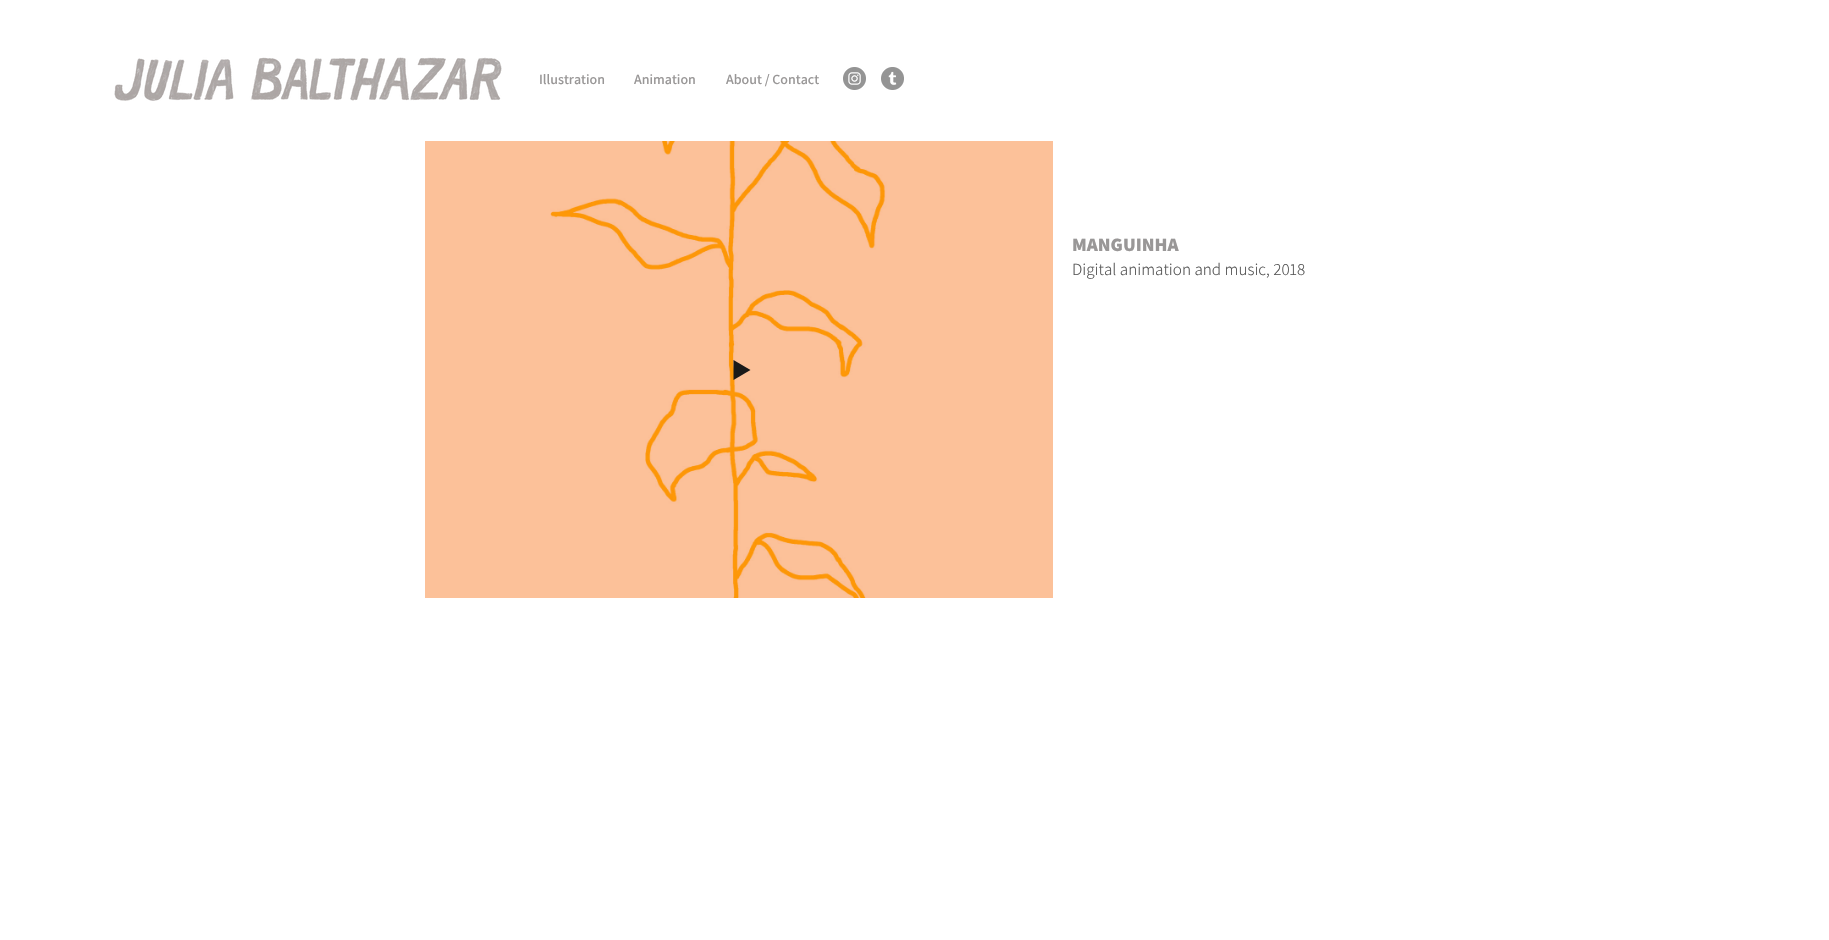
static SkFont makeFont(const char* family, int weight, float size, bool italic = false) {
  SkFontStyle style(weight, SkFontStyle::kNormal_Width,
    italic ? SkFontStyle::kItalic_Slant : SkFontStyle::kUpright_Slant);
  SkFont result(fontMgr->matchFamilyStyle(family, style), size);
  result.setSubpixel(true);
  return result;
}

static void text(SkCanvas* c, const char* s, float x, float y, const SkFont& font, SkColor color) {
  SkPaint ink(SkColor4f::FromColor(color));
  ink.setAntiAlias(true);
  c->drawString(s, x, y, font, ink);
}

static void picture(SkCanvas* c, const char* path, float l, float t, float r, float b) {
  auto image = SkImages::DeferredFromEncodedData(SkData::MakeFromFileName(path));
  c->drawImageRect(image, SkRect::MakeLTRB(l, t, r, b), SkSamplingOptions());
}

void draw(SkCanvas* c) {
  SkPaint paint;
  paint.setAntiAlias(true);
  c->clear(0xffffffff);
  picture(c, "img_01.png", 114, 57, 502, 101);
  SkFont face1 = makeFont("Assistant", 600, 14);
  text(c, "Illustration", 539, 84, face1, 0xff999797);
  text(c, "Animation", 634, 84, face1, 0xff999797);
  text(c, "About / Contact", 726, 84, face1, 0xff999797);
  picture(c, "img_02.png", 843, 67, 866, 90);
  picture(c, "img_03.png", 881, 67, 904, 90);
  picture(c, "img_04.png", 425, 141, 1053, 598);
  paint.setColor(0xff1a1a1a);
  c->drawPath(SkPathBuilder().moveTo(750.5f, 370).lineTo(733.5f, 380).lineTo(733.5f, 360).close().detach(), paint);
  SkFont face2 = makeFont("Assistant", 800, 19);
  text(c, "MANGUINHA", 1072, 251, face2, 0xff999797);
  SkFont face3 = makeFont("Assistant", 300, 17);
  text(c, "Digital animation and music, 2018", 1072, 275, face3, 0xff565656);
}
